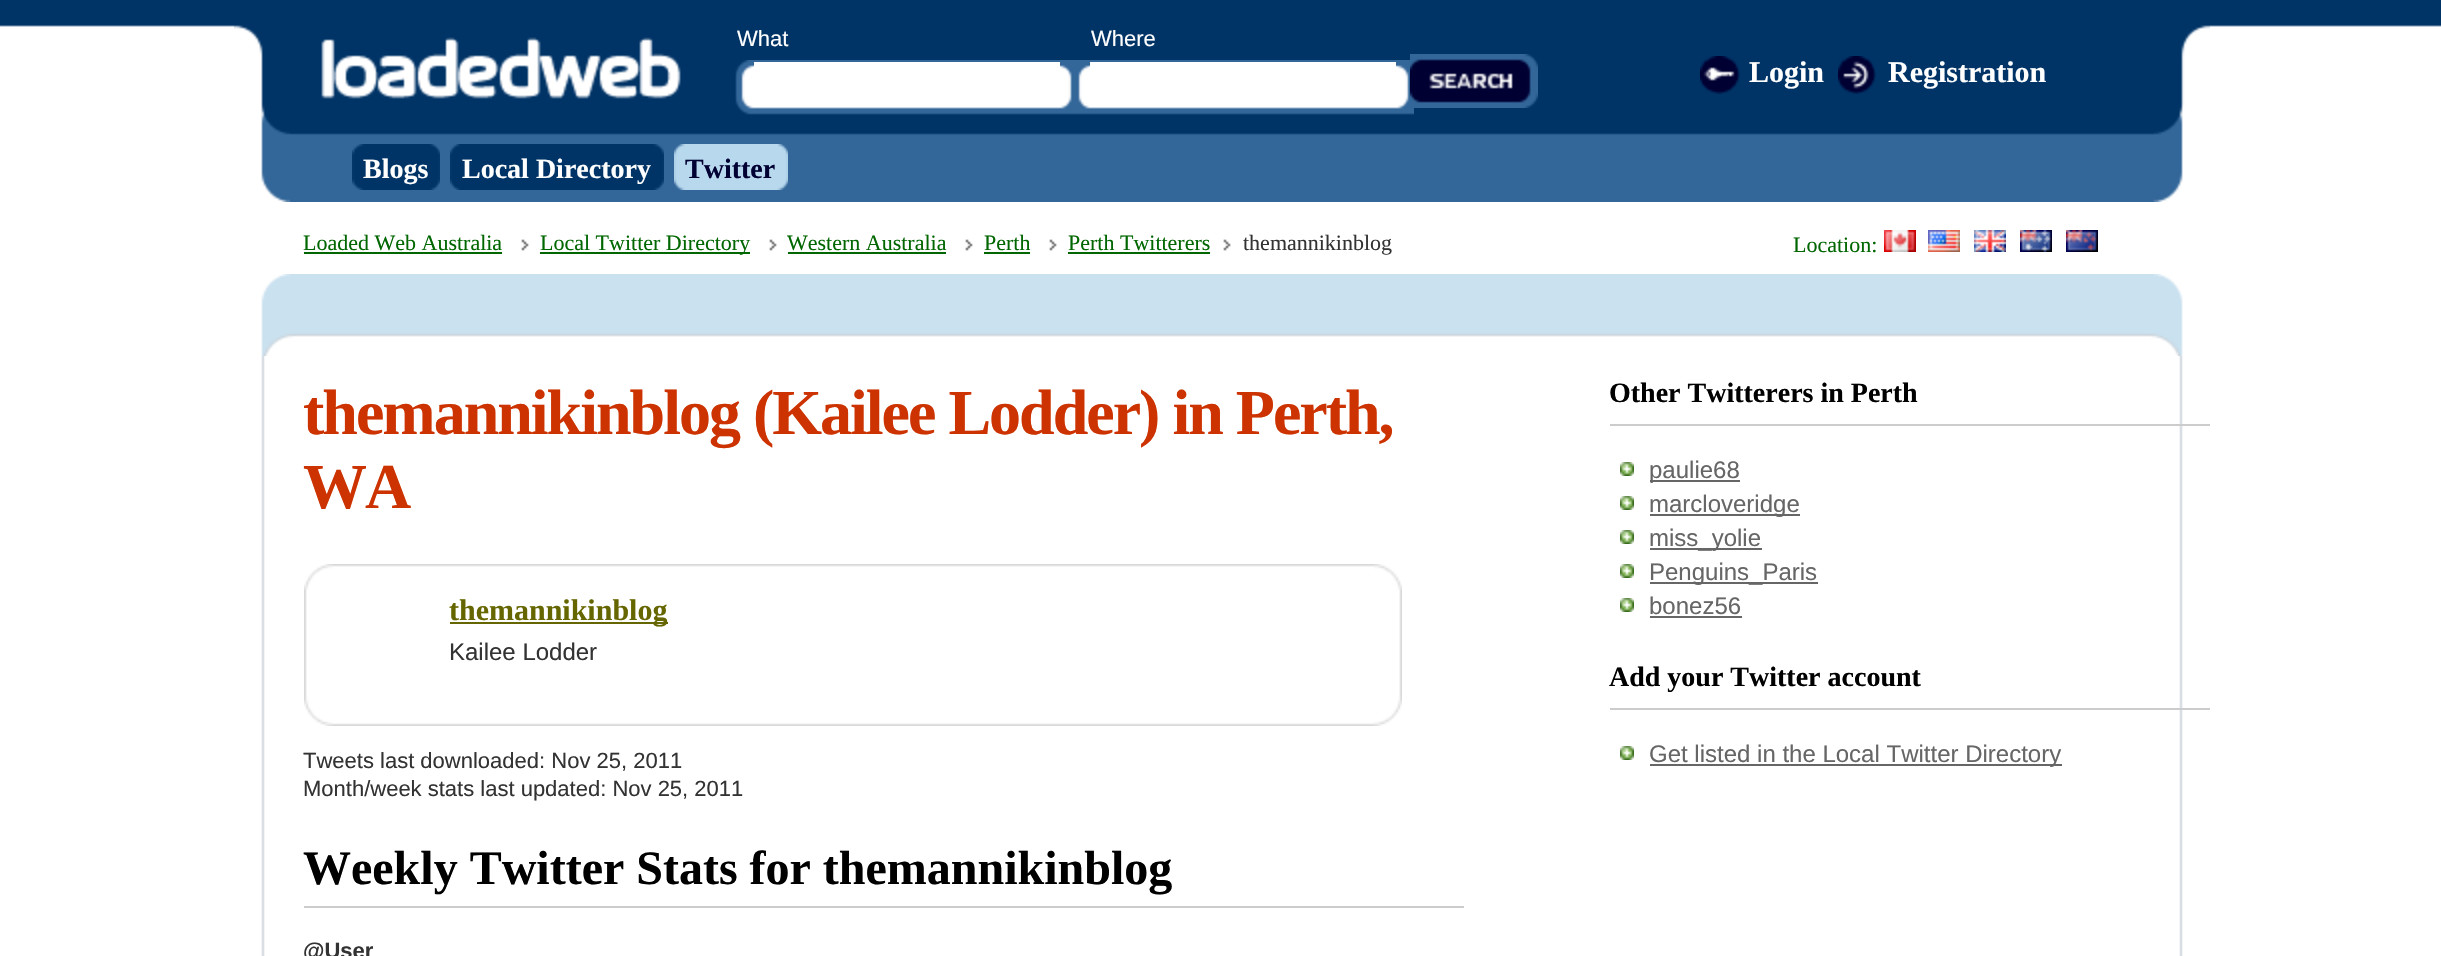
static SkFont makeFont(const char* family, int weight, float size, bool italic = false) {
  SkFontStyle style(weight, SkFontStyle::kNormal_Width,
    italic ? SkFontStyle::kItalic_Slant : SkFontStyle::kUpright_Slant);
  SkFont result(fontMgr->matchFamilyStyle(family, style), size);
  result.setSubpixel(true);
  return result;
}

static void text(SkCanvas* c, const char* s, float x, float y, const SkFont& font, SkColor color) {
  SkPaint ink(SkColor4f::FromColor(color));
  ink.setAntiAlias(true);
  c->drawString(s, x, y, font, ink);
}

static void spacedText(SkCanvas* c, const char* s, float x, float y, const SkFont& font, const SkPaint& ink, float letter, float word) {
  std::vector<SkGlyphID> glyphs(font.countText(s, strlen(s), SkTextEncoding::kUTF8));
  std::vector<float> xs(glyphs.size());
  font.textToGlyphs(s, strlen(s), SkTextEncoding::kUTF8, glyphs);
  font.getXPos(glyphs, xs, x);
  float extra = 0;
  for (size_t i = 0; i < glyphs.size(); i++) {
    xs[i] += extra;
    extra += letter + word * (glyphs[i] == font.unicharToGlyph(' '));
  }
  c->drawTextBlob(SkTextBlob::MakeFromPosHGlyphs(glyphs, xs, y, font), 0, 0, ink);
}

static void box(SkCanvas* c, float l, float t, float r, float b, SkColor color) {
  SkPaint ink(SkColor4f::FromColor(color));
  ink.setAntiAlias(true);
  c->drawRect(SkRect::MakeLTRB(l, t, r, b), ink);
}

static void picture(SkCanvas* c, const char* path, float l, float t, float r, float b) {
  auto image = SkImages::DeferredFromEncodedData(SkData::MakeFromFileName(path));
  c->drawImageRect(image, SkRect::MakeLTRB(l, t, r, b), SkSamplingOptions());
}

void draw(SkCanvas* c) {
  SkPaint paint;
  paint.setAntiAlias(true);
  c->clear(0xffffffff);
  picture(c, "img_01.png", 0, 0, 2441, 27);
  picture(c, "img_02.png", 234, 25, 2210, 202);
  picture(c, "img_03.png", 321, 37, 681, 99);
  picture(c, "img_04.png", 735, 60, 1414, 115);
  SkFont face1 = makeFont("Liberation Sans", 400, 22);
  text(c, "What", 737, 46, face1, 0xffffffff);
  text(c, "Where", 1091, 46, face1, 0xffffffff);
  box(c, 754, 62, 1060, 67, 0xffffffff);
  box(c, 1090, 62, 1396, 67, 0xffffffff);
  picture(c, "img_05.png", 1410, 54, 1538, 108);
  picture(c, "img_06.png", 1700, 56, 1740, 94);
  SkFont face2 = makeFont("Liberation Serif", 700, 30);
  text(c, "Login", 1749, 82, face2, 0xffffffff);
  picture(c, "img_07.png", 1838, 56, 1876, 94);
  text(c, "Registration", 1888, 82, face2, 0xffffffff);
  picture(c, "img_08.png", 364, 144, 440, 190);
  picture(c, "img_09.png", 352, 144, 364, 190);
  SkFont face3 = makeFont("Liberation Serif", 700, 28);
  text(c, "Blogs", 363, 178, face3, 0xffffffff);
  picture(c, "img_10.png", 460, 144, 664, 190);
  picture(c, "img_11.png", 450, 144, 460, 190);
  text(c, "Local Directory", 462, 178, face3, 0xffffffff);
  picture(c, "img_12.png", 685, 144, 788, 190);
  picture(c, "img_13.png", 674, 144, 685, 190);
  text(c, "Twitter", 685, 178, face3, 0xff000033);
  SkFont face4 = makeFont("Liberation Serif", 400, 22);
  text(c, "Loaded Web Australia", 303, 250, face4, 0xff006600);
  box(c, 304, 252, 502, 254, 0xff006600);
  picture(c, "img_14.png", 521, 239, 529, 251);
  box(c, 540, 252, 750, 254, 0xff006600);
  text(c, "Local Twitter Directory", 540, 250, face4, 0xff006600);
  picture(c, "img_14.png", 769, 239, 777, 251);
  text(c, "Western Australia", 787, 250, face4, 0xff006600);
  box(c, 788, 252, 946, 254, 0xff006600);
  picture(c, "img_14.png", 965, 239, 973, 251);
  text(c, "Perth", 984, 250, face4, 0xff006600);
  box(c, 984, 252, 1030, 254, 0xff006600);
  picture(c, "img_14.png", 1049, 239, 1057, 251);
  text(c, "Perth Twitterers", 1068, 250, face4, 0xff006600);
  box(c, 1068, 252, 1210, 254, 0xff006600);
  picture(c, "img_14.png", 1223, 239, 1231, 251);
  text(c, "themannikinblog", 1243, 250, face4, 0xff333333);
  text(c, "Location:", 1793, 252, face4, 0xff006600);
  picture(c, "img_15.png", 1884, 230, 1916, 252);
  picture(c, "img_16.png", 1928, 230, 1960, 252);
  picture(c, "img_17.png", 1974, 230, 2006, 252);
  picture(c, "img_18.png", 2020, 230, 2052, 252);
  picture(c, "img_19.png", 2066, 230, 2098, 252);
  picture(c, "img_20.png", 261, 356, 2183, 956);
  picture(c, "img_21.png", 261, 274, 2183, 356);
  SkFont face5 = makeFont("Liberation Serif", 700, 64);
  paint.setColor(0xffcc3300);
  spacedText(c, "themannikinblog (Kailee Lodder) in Perth,", 303, 434, face5, paint, -2, 0);
  spacedText(c, "WA", 303, 508, face5, paint, -2, 0);
  picture(c, "img_22.png", 304, 590, 1402, 726);
  picture(c, "img_23.png", 304, 564, 1402, 590);
  box(c, 450, 622, 668, 624, 0xff666600);
  text(c, "themannikinblog", 449, 620, face2, 0xff666600);
  SkFont face6 = makeFont("Liberation Sans", 400, 24);
  text(c, "Kailee Lodder", 449, 660, face6, 0xff333333);
  text(c, "Tweets last downloaded: Nov 25, 2011", 303, 768, face1, 0xff333333);
  text(c, "Month/week stats last updated: Nov 25, 2011", 303, 796, face1, 0xff333333);
  box(c, 304, 906, 1464, 908, 0xffcccccc);
  SkFont face7 = makeFont("Liberation Serif", 700, 48);
  text(c, "Weekly Twitter Stats for themannikinblog", 303, 884, face7, 0xff000000);
  SkFont face8 = makeFont("Liberation Sans", 700, 22);
  text(c, "@User", 303, 958, face8, 0xff333333);
  box(c, 1610, 424, 2210, 426, 0xffcccccc);
  text(c, "Other Twitterers in Perth", 1609, 402, face3, 0xff000000);
  picture(c, "img_24.png", 1620, 462, 1634, 476);
  box(c, 1650, 480, 1740, 482, 0xff666666);
  text(c, "paulie68", 1649, 478, face6, 0xff666666);
  picture(c, "img_24.png", 1620, 496, 1634, 510);
  box(c, 1650, 514, 1800, 516, 0xff666666);
  text(c, "marcloveridge", 1649, 512, face6, 0xff666666);
  picture(c, "img_24.png", 1620, 530, 1634, 544);
  box(c, 1650, 548, 1762, 550, 0xff666666);
  text(c, "miss_yolie", 1649, 546, face6, 0xff666666);
  picture(c, "img_24.png", 1620, 564, 1634, 578);
  box(c, 1650, 582, 1818, 584, 0xff666666);
  text(c, "Penguins_Paris", 1649, 580, face6, 0xff666666);
  picture(c, "img_24.png", 1620, 598, 1634, 612);
  text(c, "bonez56", 1649, 614, face6, 0xff666666);
  box(c, 1650, 616, 1742, 618, 0xff666666);
  box(c, 1610, 708, 2210, 710, 0xffcccccc);
  text(c, "Add your Twitter account", 1609, 686, face3, 0xff000000);
  picture(c, "img_24.png", 1620, 746, 1634, 760);
  box(c, 1650, 764, 2062, 766, 0xff666666);
  text(c, "Get listed in the Local Twitter Directory", 1649, 762, face6, 0xff666666);
}
